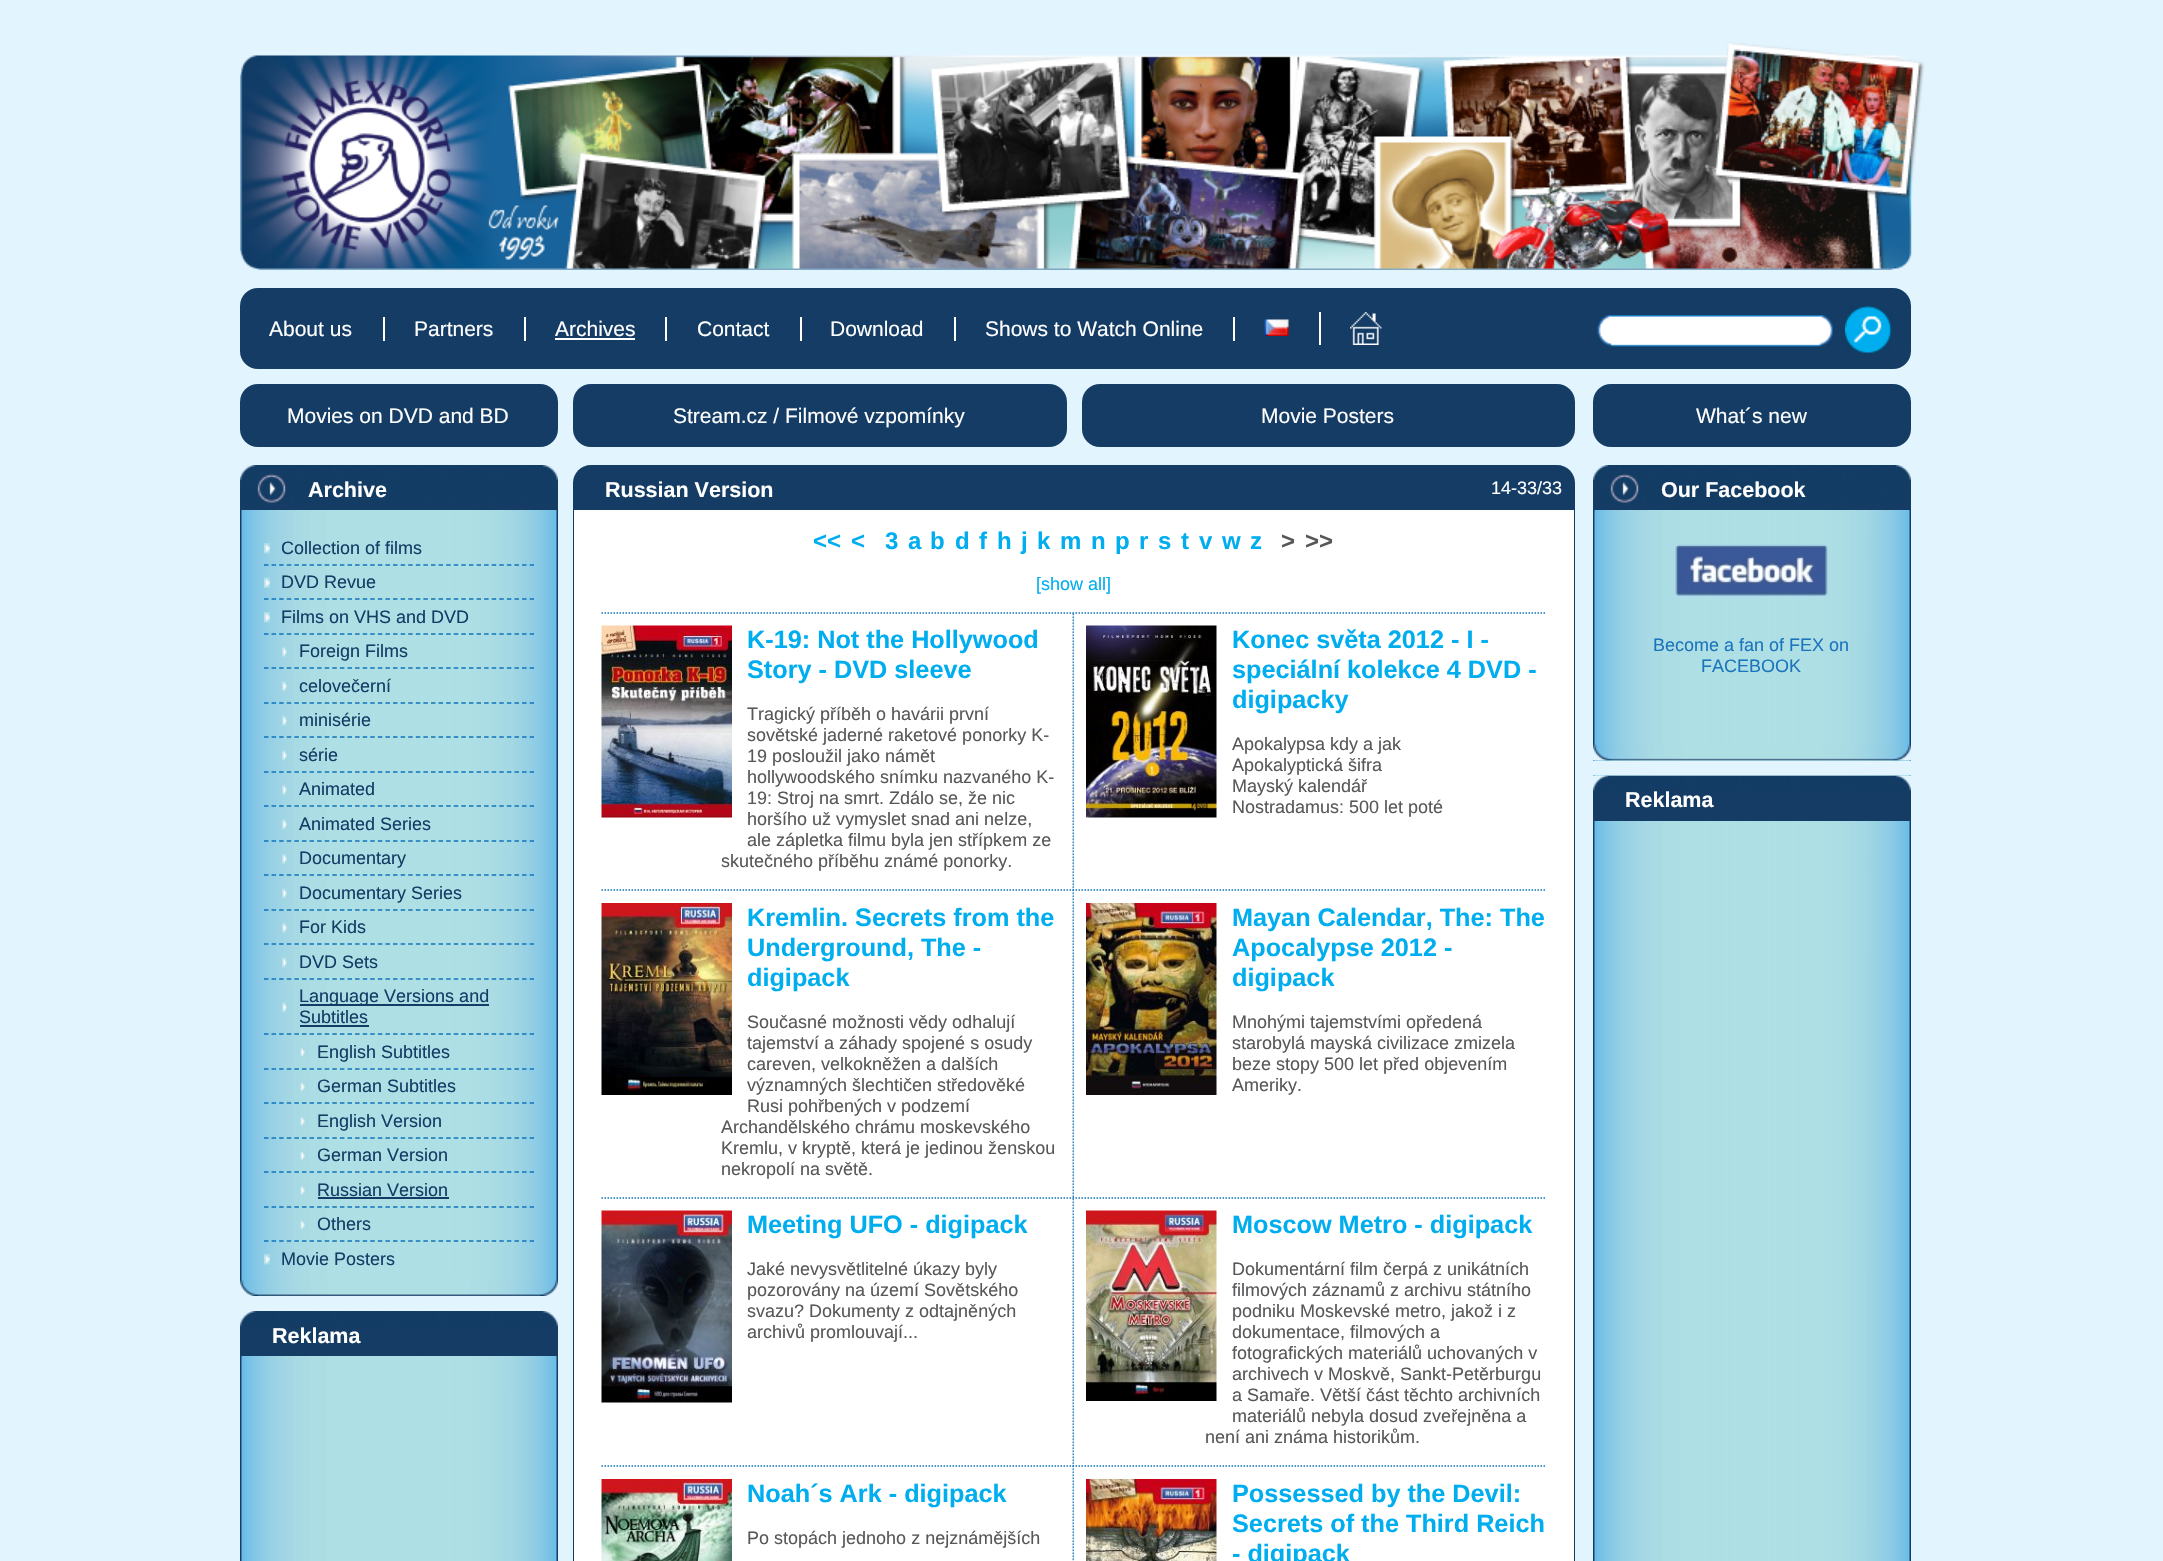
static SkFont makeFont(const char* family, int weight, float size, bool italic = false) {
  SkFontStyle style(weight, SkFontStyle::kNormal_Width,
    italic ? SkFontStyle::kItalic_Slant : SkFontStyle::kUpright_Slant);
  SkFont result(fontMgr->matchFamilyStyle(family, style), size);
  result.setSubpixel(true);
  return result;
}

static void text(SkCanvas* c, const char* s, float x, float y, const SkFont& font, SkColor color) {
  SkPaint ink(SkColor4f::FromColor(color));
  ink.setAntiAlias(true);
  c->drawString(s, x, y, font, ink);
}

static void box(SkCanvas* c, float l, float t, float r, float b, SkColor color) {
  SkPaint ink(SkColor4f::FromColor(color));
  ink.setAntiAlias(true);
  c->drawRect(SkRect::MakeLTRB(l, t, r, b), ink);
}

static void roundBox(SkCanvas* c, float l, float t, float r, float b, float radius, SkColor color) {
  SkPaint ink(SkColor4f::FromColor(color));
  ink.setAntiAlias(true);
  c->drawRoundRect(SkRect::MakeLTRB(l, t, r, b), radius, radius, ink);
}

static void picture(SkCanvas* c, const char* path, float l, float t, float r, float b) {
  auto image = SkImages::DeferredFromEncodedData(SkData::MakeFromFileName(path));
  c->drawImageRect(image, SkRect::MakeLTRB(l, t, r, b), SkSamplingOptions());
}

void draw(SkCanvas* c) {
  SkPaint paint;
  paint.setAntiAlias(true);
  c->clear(0xffe2f4fd);
  roundBox(c, 240, 288, 1911, 369, 18, 0xff143c65);
  box(c, 1319, 312, 1321, 345, 0xffffffff);
  picture(c, "img_01.png", 240, 42, 1925, 270);
  picture(c, "img_02.png", 1350, 312, 1382, 345);
  SkFont face1 = makeFont("Liberation Sans", 400, 21);
  text(c, "About us", 269, 336, face1, 0xffffffff);
  text(c, "Partners", 414, 336, face1, 0xffffffff);
  box(c, 383, 317, 385, 341, 0xffffffff);
  text(c, "Archives", 555, 336, face1, 0xffffffff);
  box(c, 524, 317, 526, 341, 0xffffffff);
  box(c, 555, 338, 635, 340, 0xffffffff);
  text(c, "Contact", 697, 336, face1, 0xffffffff);
  box(c, 665, 317, 667, 341, 0xffffffff);
  text(c, "Download", 830, 336, face1, 0xffffffff);
  box(c, 800, 317, 802, 341, 0xffffffff);
  text(c, "Shows to Watch Online", 985, 336, face1, 0xffffffff);
  box(c, 954, 317, 956, 341, 0xffffffff);
  box(c, 1233, 317, 1235, 341, 0xffffffff);
  picture(c, "img_03.png", 1264, 319, 1289, 336);
  picture(c, "img_04.png", 1597, 315, 1833, 347);
  picture(c, "img_05.png", 1845, 306, 1892, 353);
  roundBox(c, 240, 384, 558, 447, 18, 0xff143c65);
  text(c, "Movies on DVD and BD", 287, 423, face1, 0xffffffff);
  roundBox(c, 573, 384, 1067, 447, 18, 0xff143c65);
  text(c, "Stream.cz / Filmové vzpomínky", 673, 423, face1, 0xffffffff);
  roundBox(c, 1082, 384, 1575, 447, 18, 0xff143c65);
  text(c, "Movie Posters", 1261, 423, face1, 0xffffffff);
  roundBox(c, 1593, 384, 1911, 447, 18, 0xff143c65);
  text(c, "What´s new", 1696, 423, face1, 0xffffffff);
  picture(c, "img_06.png", 240, 510, 558, 1279);
  box(c, 240, 503, 558, 510, 0xff143c65);
  picture(c, "img_07.png", 240, 465, 558, 503);
  SkFont face2 = makeFont("Liberation Sans", 700, 21.5f);
  text(c, "Archive", 308, 497, face2, 0xffffffff);
  picture(c, "img_08.png", 240, 1279, 558, 1296);
  picture(c, "img_09.png", 264, 543, 270, 554);
  SkFont face3 = makeFont("Liberation Sans", 400, 18);
  text(c, "Collection of films", 281, 554, face3, 0xff143c65);
  paint.setStyle(SkPaint::kStroke_Style);
  paint.setStrokeWidth(1.5f);
  paint.setColor(0xff0f75bc);
  paint.setPathEffect(SkDashPathEffect::Make({{4.5f, 3.09f}}, 0));
  c->drawPath(SkPathBuilder().moveTo(264, 565).lineTo(534, 565).detach(), paint);
  paint.setPathEffect(nullptr);
  picture(c, "img_10.png", 264, 577, 270, 588);
  text(c, "DVD Revue", 281, 588, face3, 0xff143c65);
  paint.setPathEffect(SkDashPathEffect::Make({{4.5f, 3.09f}}, 0));
  c->drawPath(SkPathBuilder().moveTo(264, 599).lineTo(534, 599).detach(), paint);
  paint.setPathEffect(nullptr);
  picture(c, "img_09.png", 264, 612, 270, 623);
  text(c, "Films on VHS and DVD", 281, 623, face3, 0xff143c65);
  paint.setPathEffect(SkDashPathEffect::Make({{4.5f, 3.09f}}, 0));
  c->drawPath(SkPathBuilder().moveTo(264, 634).lineTo(534, 634).detach(), paint);
  paint.setPathEffect(nullptr);
  picture(c, "img_11.png", 282, 646, 287, 657);
  text(c, "Foreign Films", 299, 657, face3, 0xff143c65);
  paint.setPathEffect(SkDashPathEffect::Make({{4.5f, 3.09f}}, 0));
  c->drawPath(SkPathBuilder().moveTo(264, 668).lineTo(534, 668).detach(), paint);
  paint.setPathEffect(nullptr);
  picture(c, "img_12.png", 282, 681, 287, 692);
  text(c, "celovečerní", 299, 692, face3, 0xff143c65);
  paint.setPathEffect(SkDashPathEffect::Make({{4.5f, 3.09f}}, 0));
  c->drawPath(SkPathBuilder().moveTo(264, 703).lineTo(534, 703).detach(), paint);
  paint.setPathEffect(nullptr);
  picture(c, "img_11.png", 282, 715, 287, 726);
  text(c, "minisérie", 299, 726, face3, 0xff143c65);
  paint.setPathEffect(SkDashPathEffect::Make({{4.5f, 3.09f}}, 0));
  c->drawPath(SkPathBuilder().moveTo(264, 737).lineTo(534, 737).detach(), paint);
  paint.setPathEffect(nullptr);
  picture(c, "img_12.png", 282, 750, 287, 761);
  text(c, "série", 299, 761, face3, 0xff143c65);
  paint.setPathEffect(SkDashPathEffect::Make({{4.5f, 3.09f}}, 0));
  c->drawPath(SkPathBuilder().moveTo(264, 772).lineTo(534, 772).detach(), paint);
  paint.setPathEffect(nullptr);
  picture(c, "img_11.png", 282, 784, 287, 795);
  text(c, "Animated", 299, 795, face3, 0xff143c65);
  paint.setPathEffect(SkDashPathEffect::Make({{4.5f, 3.09f}}, 0));
  c->drawPath(SkPathBuilder().moveTo(264, 806).lineTo(534, 806).detach(), paint);
  paint.setPathEffect(nullptr);
  picture(c, "img_12.png", 282, 819, 287, 830);
  text(c, "Animated Series", 299, 830, face3, 0xff143c65);
  paint.setPathEffect(SkDashPathEffect::Make({{4.5f, 3.09f}}, 0));
  c->drawPath(SkPathBuilder().moveTo(264, 841).lineTo(534, 841).detach(), paint);
  paint.setPathEffect(nullptr);
  picture(c, "img_11.png", 282, 853, 287, 864);
  text(c, "Documentary", 299, 864, face3, 0xff143c65);
  paint.setPathEffect(SkDashPathEffect::Make({{4.5f, 3.09f}}, 0));
  c->drawPath(SkPathBuilder().moveTo(264, 875).lineTo(534, 875).detach(), paint);
  paint.setPathEffect(nullptr);
  picture(c, "img_12.png", 282, 888, 287, 899);
  text(c, "Documentary Series", 299, 899, face3, 0xff143c65);
  paint.setPathEffect(SkDashPathEffect::Make({{4.5f, 3.09f}}, 0));
  c->drawPath(SkPathBuilder().moveTo(264, 910).lineTo(534, 910).detach(), paint);
  paint.setPathEffect(nullptr);
  picture(c, "img_11.png", 282, 922, 287, 933);
  text(c, "For Kids", 299, 933, face3, 0xff143c65);
  paint.setPathEffect(SkDashPathEffect::Make({{4.5f, 3.09f}}, 0));
  c->drawPath(SkPathBuilder().moveTo(264, 944).lineTo(534, 944).detach(), paint);
  paint.setPathEffect(nullptr);
  picture(c, "img_12.png", 282, 957, 287, 968);
  text(c, "DVD Sets", 299, 968, face3, 0xff143c65);
  paint.setPathEffect(SkDashPathEffect::Make({{4.5f, 3.09f}}, 0));
  c->drawPath(SkPathBuilder().moveTo(264, 979).lineTo(534, 979).detach(), paint);
  paint.setPathEffect(nullptr);
  picture(c, "img_12.png", 282, 1002, 287, 1013);
  box(c, 300, 1004, 489, 1006, 0xff143c65);
  text(c, "Language Versions and", 299, 1002, face3, 0xff143c65);
  text(c, "Subtitles", 299, 1023, face3, 0xff143c65);
  box(c, 300, 1025, 369, 1027, 0xff143c65);
  paint.setPathEffect(SkDashPathEffect::Make({{4.5f, 3.09f}}, 0));
  c->drawPath(SkPathBuilder().moveTo(264, 1034).lineTo(534, 1034).detach(), paint);
  paint.setPathEffect(nullptr);
  picture(c, "img_13.png", 300, 1048, 305, 1058);
  text(c, "English Subtitles", 317, 1058, face3, 0xff143c65);
  paint.setPathEffect(SkDashPathEffect::Make({{4.5f, 3.09f}}, 0));
  c->drawPath(SkPathBuilder().moveTo(264, 1069).lineTo(534, 1069).detach(), paint);
  paint.setPathEffect(nullptr);
  picture(c, "img_14.png", 300, 1082, 305, 1092);
  text(c, "German Subtitles", 317, 1092, face3, 0xff143c65);
  paint.setPathEffect(SkDashPathEffect::Make({{4.5f, 3.09f}}, 0));
  c->drawPath(SkPathBuilder().moveTo(264, 1103).lineTo(534, 1103).detach(), paint);
  paint.setPathEffect(nullptr);
  picture(c, "img_13.png", 300, 1117, 305, 1127);
  text(c, "English Version", 317, 1127, face3, 0xff143c65);
  paint.setPathEffect(SkDashPathEffect::Make({{4.5f, 3.09f}}, 0));
  c->drawPath(SkPathBuilder().moveTo(264, 1138).lineTo(534, 1138).detach(), paint);
  paint.setPathEffect(nullptr);
  picture(c, "img_14.png", 300, 1151, 305, 1161);
  text(c, "German Version", 317, 1161, face3, 0xff143c65);
  paint.setPathEffect(SkDashPathEffect::Make({{4.5f, 3.09f}}, 0));
  c->drawPath(SkPathBuilder().moveTo(264, 1172).lineTo(534, 1172).detach(), paint);
  paint.setPathEffect(nullptr);
  picture(c, "img_13.png", 300, 1186, 305, 1196);
  text(c, "Russian Version", 317, 1196, face3, 0xff143c65);
  box(c, 318, 1197, 449, 1199, 0xff143c65);
  paint.setPathEffect(SkDashPathEffect::Make({{4.5f, 3.09f}}, 0));
  c->drawPath(SkPathBuilder().moveTo(264, 1207).lineTo(534, 1207).detach(), paint);
  paint.setPathEffect(nullptr);
  picture(c, "img_14.png", 300, 1220, 305, 1230);
  text(c, "Others", 317, 1230, face3, 0xff143c65);
  paint.setPathEffect(SkDashPathEffect::Make({{4.5f, 3.09f}}, 0));
  c->drawPath(SkPathBuilder().moveTo(264, 1241).lineTo(534, 1241).detach(), paint);
  paint.setPathEffect(nullptr);
  picture(c, "img_09.png", 264, 1254, 270, 1265);
  text(c, "Movie Posters", 281, 1265, face3, 0xff143c65);
  picture(c, "img_15.png", 240, 1356, 558, 1561);
  box(c, 240, 1327, 558, 1356, 0xff143c65);
  picture(c, "img_16.png", 240, 1311, 558, 1327);
  text(c, "Reklama", 272, 1343, face2, 0xffffffff);
  paint.setStyle(SkPaint::kFill_Style);
  paint.setColor(0xff143c65);
  c->drawPath(SkPathBuilder().moveTo(591, 465).lineTo(1557, 465).cubicTo(1567, 465, 1575, 473, 1575, 483).lineTo(1575, 510).lineTo(573, 510).lineTo(573, 483).cubicTo(573, 473, 581, 465, 591, 465).close().detach(), paint);
  text(c, "Russian Version", 605, 497, face2, 0xffffffff);
  text(c, "14-33/33", 1491, 494, face3, 0xffffffff);
  box(c, 574, 510, 1574, 1561, 0xffffffff);
  paint.setColor(0xff103c66);
  c->drawPath(SkPathBuilder(SkPathFillType::kEvenOdd).moveTo(573, 510).lineTo(1575, 510).lineTo(1575, 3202).cubicTo(1575, 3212, 1567, 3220, 1557, 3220).lineTo(591, 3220).cubicTo(581, 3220, 573, 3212, 573, 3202).close().moveTo(574, 510).lineTo(1574, 510).lineTo(1574, 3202).cubicTo(1574, 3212, 1566, 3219, 1557, 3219).lineTo(591, 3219).cubicTo(582, 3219, 574, 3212, 574, 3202).close().detach(), paint);
  SkFont face4 = makeFont("Liberation Sans", 700, 24);
  text(c, "<<", 813, 549, face4, 0xff00aeef);
  text(c, "<", 851, 549, face4, 0xff00aeef);
  text(c, "3", 885, 549, face4, 0xff00aeef);
  text(c, "a", 908, 549, face4, 0xff00aeef);
  text(c, "b", 930, 549, face4, 0xff00aeef);
  text(c, "d", 955, 549, face4, 0xff00aeef);
  text(c, "f", 979, 549, face4, 0xff00aeef);
  text(c, "h", 997, 549, face4, 0xff00aeef);
  text(c, "j", 1021, 549, face4, 0xff00aeef);
  text(c, "k", 1037, 549, face4, 0xff00aeef);
  text(c, "m", 1060, 549, face4, 0xff00aeef);
  text(c, "n", 1091, 549, face4, 0xff00aeef);
  text(c, "p", 1115, 549, face4, 0xff00aeef);
  text(c, "r", 1139, 549, face4, 0xff00aeef);
  text(c, "s", 1158, 549, face4, 0xff00aeef);
  text(c, "t", 1181, 549, face4, 0xff00aeef);
  text(c, "v", 1199, 549, face4, 0xff00aeef);
  text(c, "w", 1222, 549, face4, 0xff00aeef);
  text(c, "z", 1250, 549, face4, 0xff00aeef);
  text(c, ">", 1281, 549, face4, 0xff58585a);
  text(c, ">>", 1305, 549, face4, 0xff58585a);
  text(c, "[show all]", 1036, 590, face3, 0xff00aeef);
  picture(c, "img_17.png", 1072, 612, 1074, 1561);
  paint.setStyle(SkPaint::kStroke_Style);
  paint.setColor(0xff0f75bc);
  paint.setPathEffect(SkDashPathEffect::Make({{1.5f, 1.5f}}, 0));
  c->drawPath(SkPathBuilder().moveTo(601.5f, 613).lineTo(1546.5f, 613).detach(), paint);
  paint.setPathEffect(nullptr);
  picture(c, "img_18.png", 601, 625, 732, 818);
  SkFont face5 = makeFont("Liberation Sans", 700, 25.25f);
  text(c, "K-19: Not the Hollywood", 747, 648, face5, 0xff00aeef);
  text(c, "Story - DVD sleeve", 747, 678, face5, 0xff00aeef);
  text(c, "Tragický příběh o havárii první", 747, 720, face3, 0xff58585a);
  text(c, "sovětské jaderné raketové ponorky K-", 747, 741, face3, 0xff58585a);
  text(c, "19 posloužil jako námět", 747, 762, face3, 0xff58585a);
  text(c, "hollywoodského snímku nazvaného K-", 747, 783, face3, 0xff58585a);
  text(c, "19: Stroj na smrt. Zdálo se, že nic", 747, 804, face3, 0xff58585a);
  text(c, "horšího už vymyslet snad ani nelze,", 747, 825, face3, 0xff58585a);
  text(c, "ale zápletka filmu byla jen střípkem ze", 747, 846, face3, 0xff58585a);
  text(c, "skutečného příběhu známé ponorky.", 721, 867, face3, 0xff58585a);
  picture(c, "img_19.png", 1086, 625, 1217, 818);
  text(c, "Konec světa 2012 - I -", 1232, 648, face5, 0xff00aeef);
  text(c, "speciální kolekce 4 DVD -", 1232, 678, face5, 0xff00aeef);
  text(c, "digipacky", 1232, 708, face5, 0xff00aeef);
  text(c, "Apokalypsa kdy a jak", 1232, 750, face3, 0xff58585a);
  text(c, "Apokalyptická šifra", 1232, 771, face3, 0xff58585a);
  text(c, "Mayský kalendář", 1232, 792, face3, 0xff58585a);
  text(c, "Nostradamus: 500 let poté", 1232, 813, face3, 0xff58585a);
  paint.setPathEffect(SkDashPathEffect::Make({{1.5f, 1.5f}}, 0));
  c->drawPath(SkPathBuilder().moveTo(601.5f, 890).lineTo(1546.5f, 890).detach(), paint);
  paint.setPathEffect(nullptr);
  picture(c, "img_20.png", 601, 903, 732, 1095);
  text(c, "Kremlin. Secrets from the", 747, 926, face5, 0xff00aeef);
  text(c, "Underground, The -", 747, 956, face5, 0xff00aeef);
  text(c, "digipack", 747, 986, face5, 0xff00aeef);
  text(c, "Současné možnosti vědy odhalují", 747, 1028, face3, 0xff58585a);
  text(c, "tajemství a záhady spojené s osudy", 747, 1049, face3, 0xff58585a);
  text(c, "careven, velkokněžen a dalších", 747, 1070, face3, 0xff58585a);
  text(c, "významných šlechtičen středověké", 747, 1091, face3, 0xff58585a);
  text(c, "Rusi pohřbených v podzemí", 747, 1112, face3, 0xff58585a);
  text(c, "Archandělského chrámu moskevského", 721, 1133, face3, 0xff58585a);
  text(c, "Kremlu, v kryptě, která je jedinou ženskou", 721, 1154, face3, 0xff58585a);
  text(c, "nekropolí na světě.", 721, 1175, face3, 0xff58585a);
  picture(c, "img_21.png", 1086, 903, 1217, 1095);
  text(c, "Mayan Calendar, The: The", 1232, 926, face5, 0xff00aeef);
  text(c, "Apocalypse 2012 -", 1232, 956, face5, 0xff00aeef);
  text(c, "digipack", 1232, 986, face5, 0xff00aeef);
  text(c, "Mnohými tajemstvími opředená", 1232, 1028, face3, 0xff58585a);
  text(c, "starobylá mayská civilizace zmizela", 1232, 1049, face3, 0xff58585a);
  text(c, "beze stopy 500 let před objevením", 1232, 1070, face3, 0xff58585a);
  text(c, "Ameriky.", 1232, 1091, face3, 0xff58585a);
  paint.setPathEffect(SkDashPathEffect::Make({{1.5f, 1.5f}}, 0));
  c->drawPath(SkPathBuilder().moveTo(601.5f, 1198).lineTo(1546.5f, 1198).detach(), paint);
  paint.setPathEffect(nullptr);
  picture(c, "img_22.png", 601, 1210, 732, 1403);
  text(c, "Meeting UFO - digipack", 747, 1233, face5, 0xff00aeef);
  text(c, "Jaké nevysvětlitelné úkazy byly", 747, 1275, face3, 0xff58585a);
  text(c, "pozorovány na území Sovětského", 747, 1296, face3, 0xff58585a);
  text(c, "svazu? Dokumenty z odtajněných", 747, 1317, face3, 0xff58585a);
  text(c, "archivů promlouvají...", 747, 1338, face3, 0xff58585a);
  picture(c, "img_23.png", 1086, 1210, 1217, 1401);
  text(c, "Moscow Metro - digipack", 1232, 1233, face5, 0xff00aeef);
  text(c, "Dokumentární film čerpá z unikátních", 1232, 1275, face3, 0xff58585a);
  text(c, "filmových záznamů z archivu státního", 1232, 1296, face3, 0xff58585a);
  text(c, "podniku Moskevské metro, jakož i z", 1232, 1317, face3, 0xff58585a);
  text(c, "dokumentace, filmových a", 1232, 1338, face3, 0xff58585a);
  text(c, "fotografických materiálů uchovaných v", 1232, 1359, face3, 0xff58585a);
  text(c, "archivech v Moskvě, Sankt-Petěrburgu", 1232, 1380, face3, 0xff58585a);
  text(c, "a Samaře. Větší část těchto archivních", 1232, 1401, face3, 0xff58585a);
  text(c, "materiálů nebyla dosud zveřejněna a", 1232, 1422, face3, 0xff58585a);
  text(c, "není ani známa historikům.", 1205, 1443, face3, 0xff58585a);
  paint.setPathEffect(SkDashPathEffect::Make({{1.5f, 1.5f}}, 0));
  c->drawPath(SkPathBuilder().moveTo(601.5f, 1466).lineTo(1546.5f, 1466).detach(), paint);
  paint.setPathEffect(nullptr);
  picture(c, "img_24.png", 601, 1479, 732, 1561);
  text(c, "Noah´s Ark - digipack", 747, 1502, face5, 0xff00aeef);
  text(c, "Po stopách jednoho z nejznámějších", 747, 1544, face3, 0xff58585a);
  picture(c, "img_25.png", 1086, 1479, 1217, 1561);
  text(c, "Possessed by the Devil:", 1232, 1502, face5, 0xff00aeef);
  text(c, "Secrets of the Third Reich", 1232, 1532, face5, 0xff00aeef);
  text(c, "- digipack", 1232, 1562, face5, 0xff00aeef);
  box(c, 1593, 760, 1911, 761, 0xffaedfe5);
  picture(c, "img_26.png", 1593, 510, 1911, 761);
  box(c, 1593, 503, 1911, 510, 0xff143c65);
  picture(c, "img_07.png", 1593, 465, 1911, 503);
  text(c, "Our Facebook", 1661, 497, face2, 0xffffffff);
  picture(c, "img_27.png", 1593, 744, 1911, 761);
  picture(c, "img_28.png", 1674, 544, 1829, 598);
  text(c, "Become a fan of FEX on", 1653, 651, face3, 0xff1c75bc);
  text(c, "FACEBOOK", 1701, 672, face3, 0xff1c75bc);
  picture(c, "img_29.png", 1593, 775, 1911, 1561);
  box(c, 1594, 791, 1910, 821, 0xff143c65);
  picture(c, "img_30.png", 1593, 775, 1911, 791);
  text(c, "Reklama", 1625, 807, face2, 0xffffffff);
}
